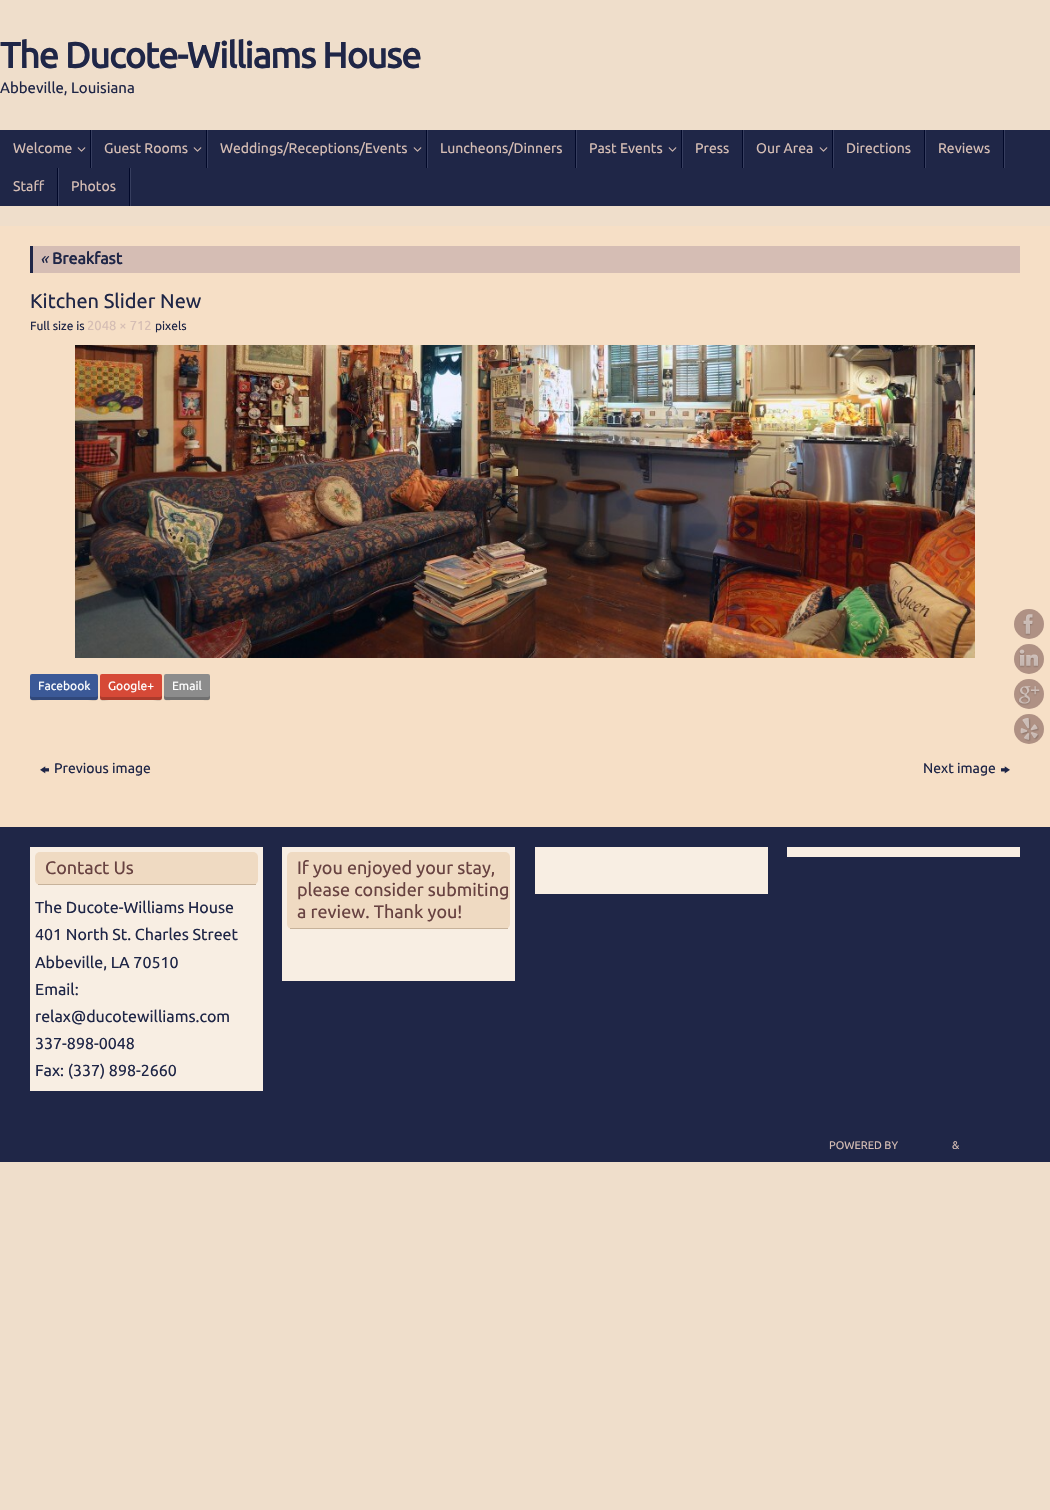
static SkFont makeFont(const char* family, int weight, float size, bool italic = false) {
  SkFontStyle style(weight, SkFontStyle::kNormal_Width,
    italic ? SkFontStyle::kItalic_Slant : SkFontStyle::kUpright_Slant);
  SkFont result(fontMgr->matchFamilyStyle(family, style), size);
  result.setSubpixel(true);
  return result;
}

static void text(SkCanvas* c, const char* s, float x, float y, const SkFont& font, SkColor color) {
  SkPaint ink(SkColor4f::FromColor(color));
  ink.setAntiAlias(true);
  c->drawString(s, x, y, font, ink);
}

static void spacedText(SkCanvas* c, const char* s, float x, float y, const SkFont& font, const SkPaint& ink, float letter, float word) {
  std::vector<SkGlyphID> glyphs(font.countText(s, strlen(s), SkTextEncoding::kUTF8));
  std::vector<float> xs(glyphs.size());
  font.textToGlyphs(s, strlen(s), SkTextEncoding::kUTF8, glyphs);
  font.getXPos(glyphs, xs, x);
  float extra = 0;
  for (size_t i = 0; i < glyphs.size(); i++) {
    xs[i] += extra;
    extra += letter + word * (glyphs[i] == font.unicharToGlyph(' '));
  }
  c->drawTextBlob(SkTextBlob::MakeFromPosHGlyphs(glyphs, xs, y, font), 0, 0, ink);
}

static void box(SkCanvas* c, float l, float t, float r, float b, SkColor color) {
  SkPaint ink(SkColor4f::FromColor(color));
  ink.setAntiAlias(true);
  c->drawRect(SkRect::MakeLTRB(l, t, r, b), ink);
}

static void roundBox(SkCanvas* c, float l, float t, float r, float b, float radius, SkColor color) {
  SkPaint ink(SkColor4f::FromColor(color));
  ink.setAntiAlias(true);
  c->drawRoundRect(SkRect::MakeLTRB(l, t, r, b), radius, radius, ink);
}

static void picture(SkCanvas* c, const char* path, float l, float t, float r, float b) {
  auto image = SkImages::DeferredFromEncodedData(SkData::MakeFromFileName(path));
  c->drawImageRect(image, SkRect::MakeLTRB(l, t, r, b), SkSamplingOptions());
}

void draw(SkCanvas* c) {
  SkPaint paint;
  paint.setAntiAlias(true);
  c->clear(0xffefdecb);
  SkFont face1 = makeFont("Ubuntu", 700, 36);
  paint.setColor(0xff1f2647);
  spacedText(c, "The Ducote-Williams House", 0, 68, face1, paint, -1.1f, 0);
  SkFont face2 = makeFont("Ubuntu", 400, 15);
  text(c, "Abbeville, Louisiana", 0, 93, face2, 0xff1f2647);
  box(c, 0, 130, 1050, 206, 0xff1f2647);
  box(c, 91, 130, 92, 168, 0xff373e5f);
  box(c, 90, 130, 91, 168, 0xff010829);
  SkFont face3 = makeFont("Ubuntu", 400, 14);
  text(c, "Welcome", 13, 153, face3, 0xffd5bdb4);
  picture(c, "img_01.png", 77, 147, 86, 152);
  box(c, 207, 130, 208, 168, 0xff373e5f);
  box(c, 206, 130, 207, 168, 0xff010829);
  text(c, "Guest Rooms", 104, 153, face3, 0xffd5bdb4);
  picture(c, "img_01.png", 193, 147, 202, 152);
  box(c, 427, 130, 428, 168, 0xff373e5f);
  box(c, 426, 130, 427, 168, 0xff010829);
  text(c, "Weddings/Receptions/Events", 220, 153, face3, 0xffd5bdb4);
  picture(c, "img_01.png", 413, 147, 422, 152);
  box(c, 576, 130, 577, 168, 0xff373e5f);
  box(c, 575, 130, 576, 168, 0xff010829);
  text(c, "Luncheons/Dinners", 440, 153, face3, 0xffd5bdb4);
  box(c, 682, 130, 683, 168, 0xff373e5f);
  box(c, 681, 130, 682, 168, 0xff010829);
  text(c, "Past Events", 589, 153, face3, 0xffd5bdb4);
  picture(c, "img_01.png", 668, 147, 677, 152);
  box(c, 743, 130, 744, 168, 0xff373e5f);
  box(c, 742, 130, 743, 168, 0xff010829);
  text(c, "Press", 695, 153, face3, 0xffd5bdb4);
  box(c, 833, 130, 834, 168, 0xff373e5f);
  box(c, 832, 130, 833, 168, 0xff010829);
  text(c, "Our Area", 756, 153, face3, 0xffd5bdb4);
  picture(c, "img_01.png", 819, 147, 828, 152);
  box(c, 925, 130, 926, 168, 0xff373e5f);
  box(c, 924, 130, 925, 168, 0xff010829);
  text(c, "Directions", 846, 153, face3, 0xffd5bdb4);
  box(c, 1004, 130, 1005, 168, 0xff373e5f);
  box(c, 1003, 130, 1004, 168, 0xff010829);
  text(c, "Reviews", 938, 153, face3, 0xffd5bdb4);
  box(c, 58, 168, 59, 206, 0xff373e5f);
  box(c, 57, 168, 58, 206, 0xff010829);
  text(c, "Staff", 13, 191, face3, 0xffd5bdb4);
  box(c, 130, 168, 131, 206, 0xff373e5f);
  box(c, 129, 168, 130, 206, 0xff010829);
  text(c, "Photos", 71, 191, face3, 0xffd5bdb4);
  box(c, 0, 226, 1050, 827, 0xfff6dfc6);
  box(c, 33, 246, 1020, 273, 0xffd5bdb4);
  box(c, 30, 246, 33, 273, 0xff1f2647);
  SkFont face4 = makeFont("Ubuntu", 400, 16, true);
  text(c, "«", 40, 264, face4, 0xff1f2647);
  SkFont face5 = makeFont("Ubuntu", 700, 16);
  text(c, "Breakfast", 52, 264, face5, 0xff1f2647);
  SkFont face6 = makeFont("Ubuntu", 400, 20);
  text(c, "Kitchen Slider New", 30, 308, face6, 0xff1f2647);
  SkFont face7 = makeFont("Ubuntu", 400, 12);
  text(c, "Full size is", 30, 330, face7, 0xff1f2647);
  SkFont face8 = makeFont("Ubuntu", 400, 13);
  text(c, "2048 × 712", 87, 330, face8, 0xffd5bdb4);
  text(c, "pixels", 155, 330, face7, 0xff1f2647);
  picture(c, "img_02.png", 75, 345, 975, 658);
  roundBox(c, 30, 674, 98, 700, 2, 0xff3b5997);
  text(c, "Facebook", 38, 690, face7, 0xffffffff);
  paint.setColor(0x33000000);
  c->drawPath(SkPathBuilder().moveTo(30, 695).cubicTo(30, 703, 33, 700, 43, 700).lineTo(85, 700).cubicTo(95, 700, 98, 703, 98, 695).cubicTo(98, 696, 97, 697, 96, 697).lineTo(32, 697).cubicTo(31, 697, 30, 696, 30, 695).close().detach(), paint);
  roundBox(c, 100, 674, 162, 700, 2, 0xffd64937);
  text(c, "Google+", 108, 690, face7, 0xffffffff);
  c->drawPath(SkPathBuilder().moveTo(100, 695).cubicTo(100, 703, 102, 700, 112, 700).lineTo(150, 700).cubicTo(160, 700, 162, 703, 162, 695).cubicTo(162, 696, 161, 697, 160, 697).lineTo(102, 697).cubicTo(101, 697, 100, 696, 100, 695).close().detach(), paint);
  roundBox(c, 164, 674, 210, 700, 2, 0xff8c8c8c);
  text(c, "Email", 172, 690, face7, 0xffffffff);
  c->drawPath(SkPathBuilder().moveTo(164, 695).cubicTo(164, 702, 165, 700, 173, 700).lineTo(201, 700).cubicTo(209, 700, 210, 702, 210, 695).cubicTo(210, 696, 209, 697, 208, 697).lineTo(166, 697).cubicTo(165, 697, 164, 696, 164, 695).close().detach(), paint);
  picture(c, "img_03.png", 40, 766, 49, 774);
  text(c, "Previous image", 54, 773, face3, 0xff1f2647);
  text(c, "Next image", 923, 773, face3, 0xff1f2647);
  picture(c, "img_04.png", 1001, 766, 1010, 774);
  box(c, 0, 827, 1050, 1162, 0xff1f2647);
  box(c, 535, 847, 768, 894, 0xfff8eee3);
  box(c, 787, 847, 1020, 857, 0xfff8eee3);
  box(c, 30, 847, 263, 1091, 0xfff8eee3);
  roundBox(c, 35, 852, 258, 885, 5, 0xffefdac2);
  box(c, 38, 884, 256, 885, 0xffc7b29a);
  SkFont face9 = makeFont("Ubuntu", 400, 18);
  text(c, "Contact Us", 45, 874, face9, 0xff684241);
  SkFont face10 = makeFont("Ubuntu", 400, 16);
  text(c, "The Ducote-Williams House", 35, 913, face10, 0xff1f2647);
  text(c, "401 North St. Charles Street", 35, 940, face10, 0xff1f2647);
  text(c, "Abbeville, LA 70510", 35, 968, face10, 0xff1f2647);
  text(c, "Email:", 35, 995, face10, 0xff1f2647);
  text(c, "relax@ducotewilliams.com", 35, 1022, face10, 0xff1f2647);
  text(c, "337-898-0048", 35, 1049, face10, 0xff1f2647);
  text(c, "Fax: (337) 898-2660", 35, 1076, face10, 0xff1f2647);
  box(c, 282, 847, 515, 981, 0xfff8eee3);
  roundBox(c, 287, 852, 510, 929, 5, 0xffefdac2);
  box(c, 290, 928, 508, 929, 0xffc7b29a);
  text(c, "If you enjoyed your stay,", 297, 874, face9, 0xff684241);
  text(c, "please consider submiting", 297, 896, face9, 0xff684241);
  text(c, "a review. Thank you!", 297, 918, face9, 0xff684241);
  SkFont face11 = makeFont("Ubuntu", 400, 11);
  text(c, "POWERED BY", 829, 1149, face11, 0xffd5bdb4);
  text(c, "&", 952, 1149, face11, 0xffd5bdb4);
  paint.setColor(0xffaf9184);
  c->drawCircle(1029, 624, 15, paint);
  picture(c, "img_05.png", 1022, 614, 1034, 636);
  c->drawCircle(1029, 659, 15, paint);
  picture(c, "img_06.png", 1019, 649, 1039, 668);
  c->drawCircle(1029, 694, 15, paint);
  picture(c, "img_07.png", 1018, 686, 1040, 706);
  c->drawCircle(1029, 729, 15, paint);
  picture(c, "img_08.png", 1020, 718, 1039, 742);
}
